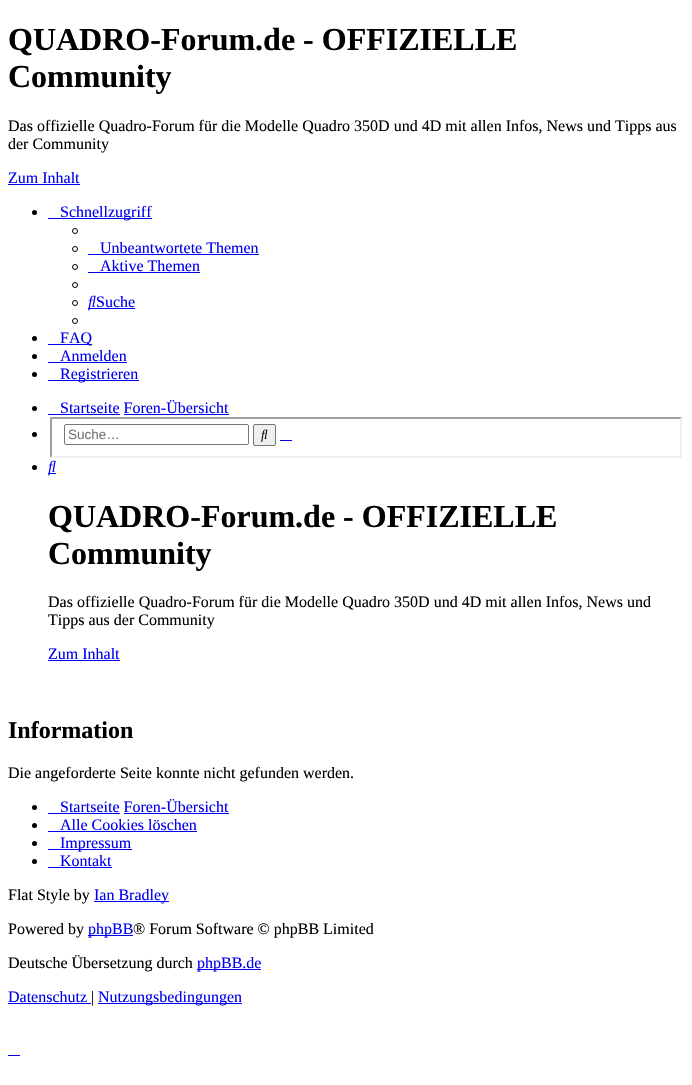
static SkFont makeFont(const char* family, int weight, float size, bool italic = false) {
  SkFontStyle style(weight, SkFontStyle::kNormal_Width,
    italic ? SkFontStyle::kItalic_Slant : SkFontStyle::kUpright_Slant);
  SkFont result(fontMgr->matchFamilyStyle(family, style), size);
  result.setSubpixel(true);
  return result;
}

static void text(SkCanvas* c, const char* s, float x, float y, const SkFont& font, SkColor color) {
  SkPaint ink(SkColor4f::FromColor(color));
  ink.setAntiAlias(true);
  c->drawString(s, x, y, font, ink);
}

static void box(SkCanvas* c, float l, float t, float r, float b, SkColor color) {
  SkPaint ink(SkColor4f::FromColor(color));
  ink.setAntiAlias(true);
  c->drawRect(SkRect::MakeLTRB(l, t, r, b), ink);
}

static void picture(SkCanvas* c, const char* path, float l, float t, float r, float b) {
  auto image = SkImages::DeferredFromEncodedData(SkData::MakeFromFileName(path));
  c->drawImageRect(image, SkRect::MakeLTRB(l, t, r, b), SkSamplingOptions());
}

void draw(SkCanvas* c) {
  SkPaint paint;
  paint.setAntiAlias(true);
  c->clear(0xffffffff);
  SkFont face1 = makeFont("Liberation Serif", 700, 32);
  text(c, "QUADRO-Forum.de - OFFIZIELLE", 8, 50, face1, 0xff000000);
  text(c, "Community", 8, 87, face1, 0xff000000);
  SkFont face2 = makeFont("Liberation Serif", 400, 16);
  text(c, "Das offizielle Quadro-Forum für die Modelle Quadro 350D und 4D mit allen Infos, News und Tipps aus", 8, 131, face2, 0xff000000);
  text(c, "der Community", 8, 149, face2, 0xff000000);
  text(c, "Zum Inhalt", 8, 183, face2, 0xff0000ee);
  box(c, 8, 184, 80, 185, 0xff0000ee);
  paint.setColor(0xff000000);
  c->drawCircle(34.5f, 212.5f, 2.5f, paint);
  box(c, 48, 218, 152, 219, 0xff0000ee);
  text(c, "Schnellzugriff", 60, 217, face2, 0xff0000ee);
  paint.setStyle(SkPaint::kStroke_Style);
  paint.setStrokeWidth(1);
  c->drawCircle(75, 231, 2.5f, paint);
  c->drawCircle(75, 249, 2.5f, paint);
  text(c, "Unbeantwortete Themen", 100, 253, face2, 0xff0000ee);
  box(c, 88, 254, 259, 255, 0xff0000ee);
  c->drawCircle(75, 267, 2.5f, paint);
  text(c, "Aktive Themen", 100, 271, face2, 0xff0000ee);
  box(c, 88, 272, 200, 273, 0xff0000ee);
  c->drawCircle(75, 285, 2.5f, paint);
  c->drawCircle(75, 303, 2.5f, paint);
  box(c, 88, 308, 135, 309, 0xff0000ee);
  picture(c, "img_01.png", 88, 295, 96, 311);
  text(c, "Suche", 96, 307, face2, 0xff0000ee);
  c->drawCircle(75, 321, 2.5f, paint);
  paint.setStyle(SkPaint::kFill_Style);
  c->drawCircle(34.5f, 338.5f, 2.5f, paint);
  box(c, 48, 344, 92, 345, 0xff0000ee);
  text(c, "FAQ", 60, 343, face2, 0xff0000ee);
  c->drawCircle(34.5f, 356.5f, 2.5f, paint);
  text(c, "Anmelden", 60, 361, face2, 0xff0000ee);
  box(c, 48, 362, 127, 363, 0xff0000ee);
  c->drawCircle(34.5f, 374.5f, 2.5f, paint);
  box(c, 48, 380, 139, 381, 0xff0000ee);
  text(c, "Registrieren", 60, 379, face2, 0xff0000ee);
  c->drawCircle(34.5f, 408.5f, 2.5f, paint);
  text(c, "Startseite Foren-Übersicht", 60, 413, face2, 0xff0000ee);
  box(c, 48, 414, 120, 415, 0xff0000ee);
  box(c, 124, 414, 229, 415, 0xff0000ee);
  c->drawCircle(34.5f, 434.5f, 2.5f, paint);
  paint.setColor(0xff9f9f9f);
  c->drawPath(SkPathBuilder().moveTo(50, 417).lineTo(682, 417).lineTo(680, 419).lineTo(52, 419).close().detach(), paint);
  paint.setColor(0xffefefef);
  c->drawPath(SkPathBuilder().moveTo(682, 417).lineTo(682, 458).lineTo(680, 456).lineTo(680, 419).close().detach(), paint);
  c->drawPath(SkPathBuilder().moveTo(682, 458).lineTo(50, 458).lineTo(52, 456).lineTo(680, 456).close().detach(), paint);
  paint.setColor(0xff9f9f9f);
  c->drawPath(SkPathBuilder().moveTo(50, 458).lineTo(50, 417).lineTo(52, 419).lineTo(52, 456).close().detach(), paint);
  paint.setStyle(SkPaint::kStroke_Style);
  paint.setColor(0xff767676);
  c->drawRoundRect(SkRect::MakeLTRB(64.5f, 424.5f, 248.5f, 444.5f), 1.5f, 1.5f, paint);
  SkFont face3 = makeFont("Liberation Sans", 400, 13.5f);
  text(c, "Suche…", 68, 439, face3, 0xff757575);
  paint.setStyle(SkPaint::kFill_Style);
  paint.setColor(0xffefefef);
  c->drawRoundRect(SkRect::MakeLTRB(253.5f, 424.5f, 275.5f, 445.5f), 1.5f, 1.5f, paint);
  paint.setStyle(SkPaint::kStroke_Style);
  paint.setColor(0xff767676);
  c->drawRoundRect(SkRect::MakeLTRB(253.5f, 424.5f, 275.5f, 445.5f), 1.5f, 1.5f, paint);
  picture(c, "img_02.png", 261, 429, 268, 442);
  box(c, 280, 440, 292, 441, 0xff0000ee);
  paint.setStyle(SkPaint::kFill_Style);
  paint.setColor(0xff000000);
  c->drawCircle(34.5f, 467.5f, 2.5f, paint);
  box(c, 48, 473, 56, 474, 0xff0000ee);
  picture(c, "img_01.png", 48, 460, 56, 476);
  text(c, "QUADRO-Forum.de - OFFIZIELLE", 48, 527, face1, 0xff000000);
  text(c, "Community", 48, 564, face1, 0xff000000);
  text(c, "Das offizielle Quadro-Forum für die Modelle Quadro 350D und 4D mit allen Infos, News und", 48, 607, face2, 0xff000000);
  text(c, "Tipps aus der Community", 48, 625, face2, 0xff000000);
  text(c, "Zum Inhalt", 48, 659, face2, 0xff0000ee);
  box(c, 48, 660, 120, 661, 0xff0000ee);
  SkFont face4 = makeFont("Liberation Serif", 700, 24);
  text(c, "Information", 8, 738, face4, 0xff000000);
  text(c, "Die angeforderte Seite konnte nicht gefunden werden.", 8, 778, face2, 0xff000000);
  c->drawCircle(34.5f, 807.5f, 2.5f, paint);
  text(c, "Startseite Foren-Übersicht", 60, 812, face2, 0xff0000ee);
  box(c, 48, 813, 120, 814, 0xff0000ee);
  box(c, 124, 813, 229, 814, 0xff0000ee);
  c->drawCircle(34.5f, 825.5f, 2.5f, paint);
  text(c, "Alle Cookies löschen", 60, 830, face2, 0xff0000ee);
  box(c, 48, 831, 197, 832, 0xff0000ee);
  c->drawCircle(34.5f, 843.5f, 2.5f, paint);
  box(c, 48, 849, 132, 850, 0xff0000ee);
  text(c, "Impressum", 60, 848, face2, 0xff0000ee);
  c->drawCircle(34.5f, 861.5f, 2.5f, paint);
  text(c, "Kontakt", 60, 866, face2, 0xff0000ee);
  box(c, 48, 867, 112, 868, 0xff0000ee);
  text(c, "Flat Style by", 8, 900, face2, 0xff000000);
  box(c, 94, 901, 169, 902, 0xff0000ee);
  text(c, "Ian Bradley", 94, 900, face2, 0xff0000ee);
  text(c, "Powered by", 8, 934, face2, 0xff000000);
  box(c, 88, 935, 133, 936, 0xff0000ee);
  text(c, "phpBB", 88, 934, face2, 0xff0000ee);
  text(c, "® Forum Software © phpBB Limited", 133, 934, face2, 0xff000000);
  text(c, "Deutsche Übersetzung durch", 8, 968, face2, 0xff000000);
  box(c, 197, 969, 261, 970, 0xff0000ee);
  text(c, "phpBB.de", 197, 968, face2, 0xff0000ee);
  text(c, "Datenschutz", 8, 1002, face2, 0xff0000ee);
  box(c, 8, 1003, 91, 1004, 0xff0000ee);
  text(c, "|", 91, 1002, face2, 0xff000000);
  box(c, 98, 1003, 242, 1004, 0xff0000ee);
  text(c, "Nutzungsbedingungen", 98, 1002, face2, 0xff0000ee);
  box(c, 8, 1055, 20, 1056, 0xff0000ee);
}
